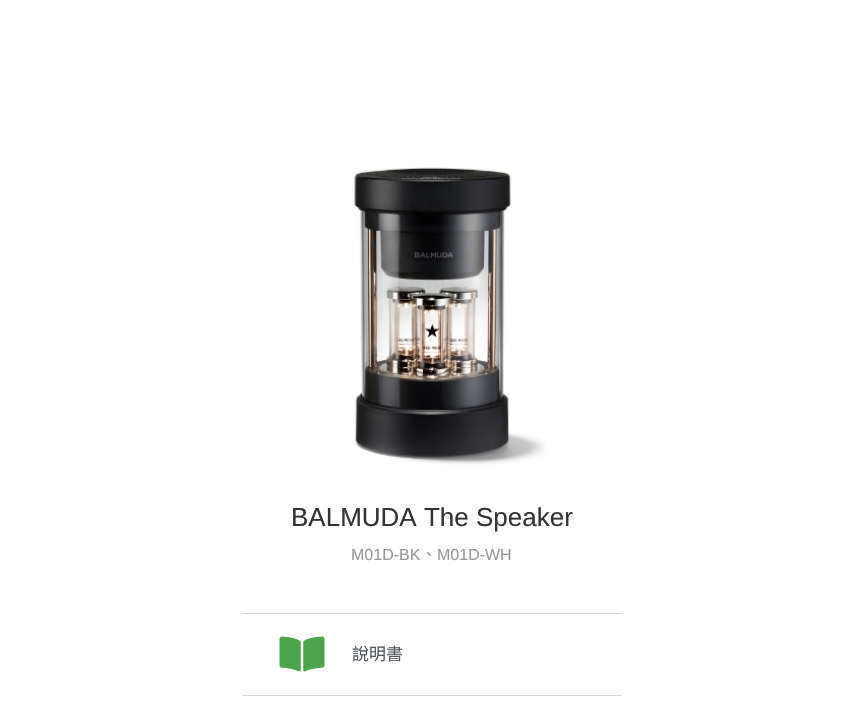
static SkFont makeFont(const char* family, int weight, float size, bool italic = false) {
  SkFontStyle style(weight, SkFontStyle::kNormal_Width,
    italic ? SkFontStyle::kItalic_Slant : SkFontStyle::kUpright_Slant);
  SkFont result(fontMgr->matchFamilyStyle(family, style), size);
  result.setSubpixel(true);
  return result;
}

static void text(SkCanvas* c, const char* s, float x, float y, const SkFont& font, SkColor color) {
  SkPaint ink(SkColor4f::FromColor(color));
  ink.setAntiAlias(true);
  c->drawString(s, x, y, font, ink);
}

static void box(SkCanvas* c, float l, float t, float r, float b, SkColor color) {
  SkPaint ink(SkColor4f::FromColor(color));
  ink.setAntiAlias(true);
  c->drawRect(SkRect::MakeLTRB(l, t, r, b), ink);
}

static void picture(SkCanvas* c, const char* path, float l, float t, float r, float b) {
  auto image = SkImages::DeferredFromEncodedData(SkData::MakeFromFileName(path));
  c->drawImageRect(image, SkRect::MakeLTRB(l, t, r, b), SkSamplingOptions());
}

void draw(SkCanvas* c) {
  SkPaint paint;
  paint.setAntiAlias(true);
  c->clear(0xffffffff);
  picture(c, "img_01.png", 353, 167, 546, 465);
  SkFont face1 = makeFont("Liberation Sans", 400, 26);
  text(c, "BALMUDA The Speaker", 291, 526, face1, 0xff333333);
  SkFont face2 = makeFont("Liberation Sans", 400, 16);
  text(c, "M01D-BK", 351, 560, face2, 0xff999999);
  SkFont face3 = makeFont("Noto Sans CJK HK", 400, 16);
  text(c, "、", 421, 560, face3, 0xff999999);
  text(c, "M01D-WH", 437, 560, face2, 0xff999999);
  box(c, 242, 613, 622, 614, 0xffd5d5d5);
  box(c, 242, 695, 622, 696, 0xffd5d5d5);
  picture(c, "img_02.png", 279, 636, 325, 672);
  SkFont face4 = makeFont("Noto Sans CJK HK", 400, 17);
  text(c, "說明書", 352, 660, face4, 0xff54595f);
}
